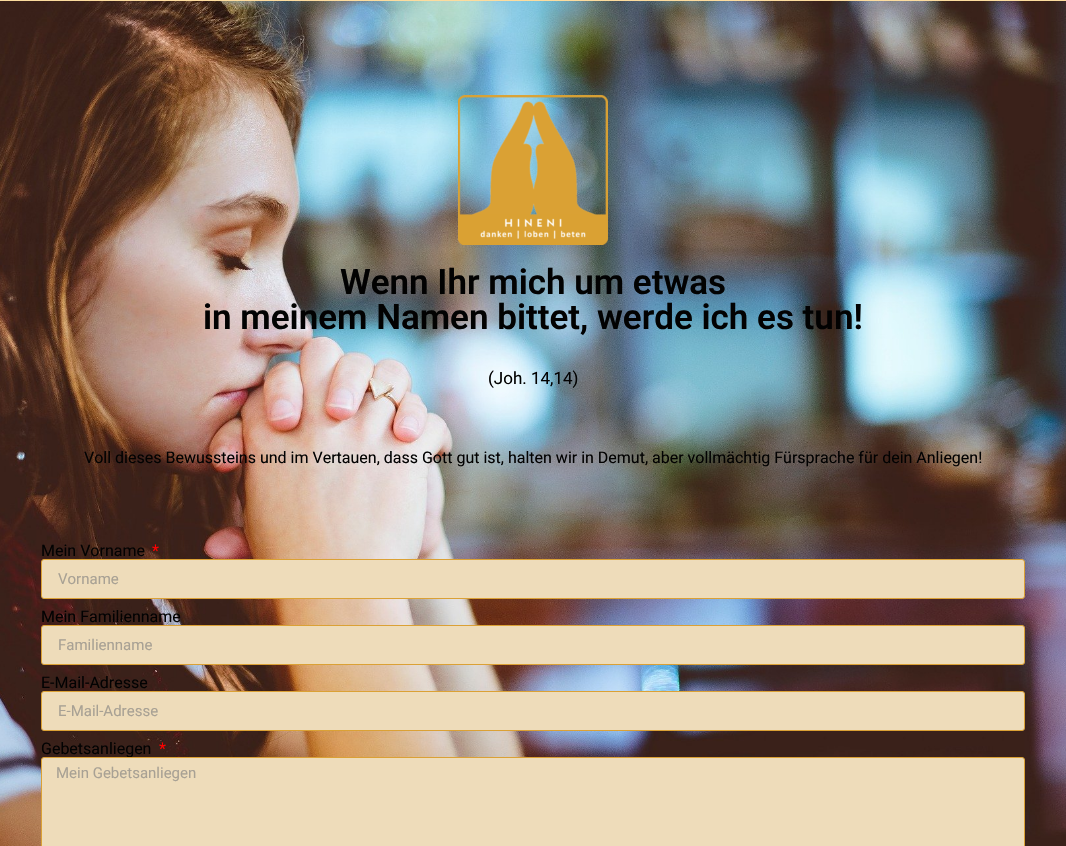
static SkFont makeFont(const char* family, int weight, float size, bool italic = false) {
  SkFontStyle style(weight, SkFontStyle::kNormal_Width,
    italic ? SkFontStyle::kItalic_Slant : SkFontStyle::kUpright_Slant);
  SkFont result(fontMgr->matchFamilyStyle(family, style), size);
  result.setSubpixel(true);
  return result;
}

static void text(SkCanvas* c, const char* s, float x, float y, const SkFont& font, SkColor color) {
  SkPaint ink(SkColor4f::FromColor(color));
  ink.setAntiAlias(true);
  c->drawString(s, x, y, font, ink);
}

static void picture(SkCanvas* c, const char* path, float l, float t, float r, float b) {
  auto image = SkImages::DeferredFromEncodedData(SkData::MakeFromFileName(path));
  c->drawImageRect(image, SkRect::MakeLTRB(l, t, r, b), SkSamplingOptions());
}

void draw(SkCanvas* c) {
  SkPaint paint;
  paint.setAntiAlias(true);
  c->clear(0xfffcdc9e);
  picture(c, "img_01.png", 0, 1, 1066, 846);
  picture(c, "img_02.png", 458, 95, 608, 245);
  SkFont face1 = makeFont("Roboto", 600, 35);
  text(c, "Wenn Ihr mich um etwas", 340, 294, face1, 0xff020202);
  text(c, "in meinem Namen bittet, werde ich es tun!", 203, 329, face1, 0xff020202);
  SkFont face2 = makeFont("Roboto", 400, 17);
  text(c, "(Joh. 14,14)", 488, 384, face2, 0xff020202);
  SkFont face3 = makeFont("Roboto", 400, 16);
  text(c, "Voll dieses Bewussteins und im Vertauen, dass Gott gut ist, halten wir in Demut, aber vollmächtig Fürsprache für dein Anliegen!", 84, 463, face3, 0xff020202);
  text(c, "Mein Vorname", 41, 556, face3, 0xff020202);
  text(c, "*", 152, 556, face3, 0xffff0000);
  paint.setColor(0xffeedcba);
  c->drawRoundRect(SkRect::MakeLTRB(41.5f, 559.5f, 1024.5f, 598.5f), 2.5f, 2.5f, paint);
  paint.setStyle(SkPaint::kStroke_Style);
  paint.setStrokeWidth(1);
  paint.setColor(0xffdba135);
  c->drawRoundRect(SkRect::MakeLTRB(41.5f, 559.5f, 1024.5f, 598.5f), 2.5f, 2.5f, paint);
  SkFont face4 = makeFont("Roboto", 400, 15);
  text(c, "Vorname", 58, 584, face4, 0xffa8a194);
  text(c, "Mein Familienname", 41, 622, face3, 0xff020202);
  paint.setStyle(SkPaint::kFill_Style);
  paint.setColor(0xffeedcba);
  c->drawRoundRect(SkRect::MakeLTRB(41.5f, 625.5f, 1024.5f, 664.5f), 2.5f, 2.5f, paint);
  paint.setStyle(SkPaint::kStroke_Style);
  paint.setColor(0xffdba135);
  c->drawRoundRect(SkRect::MakeLTRB(41.5f, 625.5f, 1024.5f, 664.5f), 2.5f, 2.5f, paint);
  text(c, "Familienname", 58, 650, face4, 0xffa8a194);
  text(c, "E-Mail-Adresse", 41, 688, face3, 0xff020202);
  paint.setStyle(SkPaint::kFill_Style);
  paint.setColor(0xffeedcba);
  c->drawRoundRect(SkRect::MakeLTRB(41.5f, 691.5f, 1024.5f, 730.5f), 2.5f, 2.5f, paint);
  paint.setStyle(SkPaint::kStroke_Style);
  paint.setColor(0xffdba135);
  c->drawRoundRect(SkRect::MakeLTRB(41.5f, 691.5f, 1024.5f, 730.5f), 2.5f, 2.5f, paint);
  text(c, "E-Mail-Adresse", 58, 716, face4, 0xffa8a194);
  text(c, "Gebetsanliegen", 41, 754, face3, 0xff020202);
  text(c, "*", 159, 754, face3, 0xffff0000);
  paint.setStyle(SkPaint::kFill_Style);
  paint.setColor(0xffeedcba);
  c->drawRoundRect(SkRect::MakeLTRB(41.5f, 757.5f, 1024.5f, 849.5f), 2.5f, 2.5f, paint);
  paint.setStyle(SkPaint::kStroke_Style);
  paint.setColor(0xffdba135);
  c->drawRoundRect(SkRect::MakeLTRB(41.5f, 757.5f, 1024.5f, 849.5f), 2.5f, 2.5f, paint);
  text(c, "Mein Gebetsanliegen", 56, 778, face4, 0xffa8a194);
}
